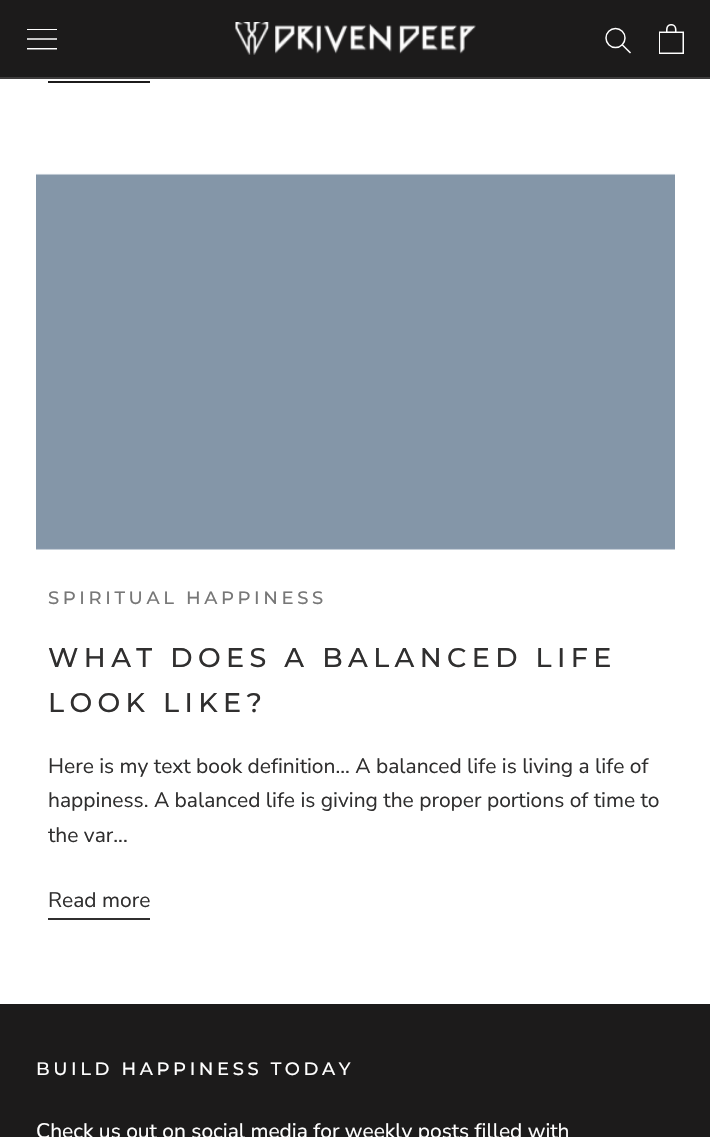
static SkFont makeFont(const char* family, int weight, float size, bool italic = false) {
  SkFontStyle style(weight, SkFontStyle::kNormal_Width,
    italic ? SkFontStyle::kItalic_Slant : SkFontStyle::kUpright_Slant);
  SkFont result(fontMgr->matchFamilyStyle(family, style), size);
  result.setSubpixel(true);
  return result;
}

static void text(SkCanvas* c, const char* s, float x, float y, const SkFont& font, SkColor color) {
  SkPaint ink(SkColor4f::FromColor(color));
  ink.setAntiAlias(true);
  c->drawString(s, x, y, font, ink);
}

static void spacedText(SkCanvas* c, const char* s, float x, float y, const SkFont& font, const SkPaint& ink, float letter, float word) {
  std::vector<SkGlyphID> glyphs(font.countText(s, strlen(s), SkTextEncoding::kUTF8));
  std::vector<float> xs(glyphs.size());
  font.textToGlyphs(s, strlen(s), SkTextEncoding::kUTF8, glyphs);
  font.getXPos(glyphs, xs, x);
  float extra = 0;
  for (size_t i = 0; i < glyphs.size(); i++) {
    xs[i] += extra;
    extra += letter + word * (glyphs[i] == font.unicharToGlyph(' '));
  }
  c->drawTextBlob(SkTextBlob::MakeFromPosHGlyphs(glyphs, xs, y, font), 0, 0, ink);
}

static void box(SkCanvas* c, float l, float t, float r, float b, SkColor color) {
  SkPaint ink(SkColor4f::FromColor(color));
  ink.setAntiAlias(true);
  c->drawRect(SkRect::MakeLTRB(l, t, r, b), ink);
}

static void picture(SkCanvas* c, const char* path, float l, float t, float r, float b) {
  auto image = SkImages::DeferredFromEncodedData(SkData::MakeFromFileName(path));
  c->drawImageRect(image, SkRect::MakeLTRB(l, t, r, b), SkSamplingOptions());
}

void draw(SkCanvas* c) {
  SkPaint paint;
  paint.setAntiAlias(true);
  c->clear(0xffffffff);
  box(c, 0, 0, 710, 77, 0xff1c1b1b);
  box(c, 0, 77, 710, 79, 0xff3e3d3d);
  picture(c, "img_01.png", 27, 29, 57, 50);
  picture(c, "img_02.png", 235, 22, 476, 55);
  paint.setStyle(SkPaint::kStroke_Style);
  paint.setStrokeWidth(1.5f);
  paint.setStrokeCap(SkPaint::kSquare_Cap);
  paint.setColor(0xffffffff);
  c->drawPath(SkPathBuilder().moveTo(630, 52.5f).lineTo(622.5f, 45).detach(), paint);
  paint.setStrokeCap(SkPaint::kButt_Cap);
  c->drawCircle(615.5f, 38, 9.5f, paint);
  picture(c, "img_03.png", 659, 24, 684, 54);
  box(c, 48, 81, 150, 83, 0xff1c1b1b);
  picture(c, "img_04.png", 36, 173, 675, 550);
  SkFont face1 = makeFont("Montserrat", 500, 18);
  paint.setStyle(SkPaint::kFill_Style);
  paint.setColor(0xff777777);
  spacedText(c, "SPIRITUAL HAPPINESS", 48, 604, face1, paint, 3.6f, 0);
  SkFont face2 = makeFont("Montserrat", 500, 27);
  paint.setColor(0xff302f2f);
  spacedText(c, "WHAT DOES A BALANCED LIFE", 48, 667, face2, paint, 5.4f, 0);
  spacedText(c, "LOOK LIKE?", 48, 712, face2, paint, 5.4f, 0);
  SkFont face3 = makeFont("Nunito Sans", 400, 21);
  text(c, "Here is my text book definition... A balanced life is living a life of", 48, 773, face3, 0xff302f2f);
  text(c, "happiness. A balanced life is giving the proper portions of time to", 48, 807, face3, 0xff302f2f);
  text(c, "the var...", 48, 842, face3, 0xff302f2f);
  text(c, "Read more", 48, 907, face3, 0xff302f2f);
  box(c, 48, 918, 150, 920, 0xff302f2f);
  box(c, 0, 1004, 710, 1137, 0xff1c1b1b);
  paint.setColor(0xffffffff);
  spacedText(c, "BUILD HAPPINESS TODAY", 36, 1075, face1, paint, 3.6f, 0);
  text(c, "Check us out on social media for weekly posts filled with", 36, 1138, face3, 0xffffffff);
}
